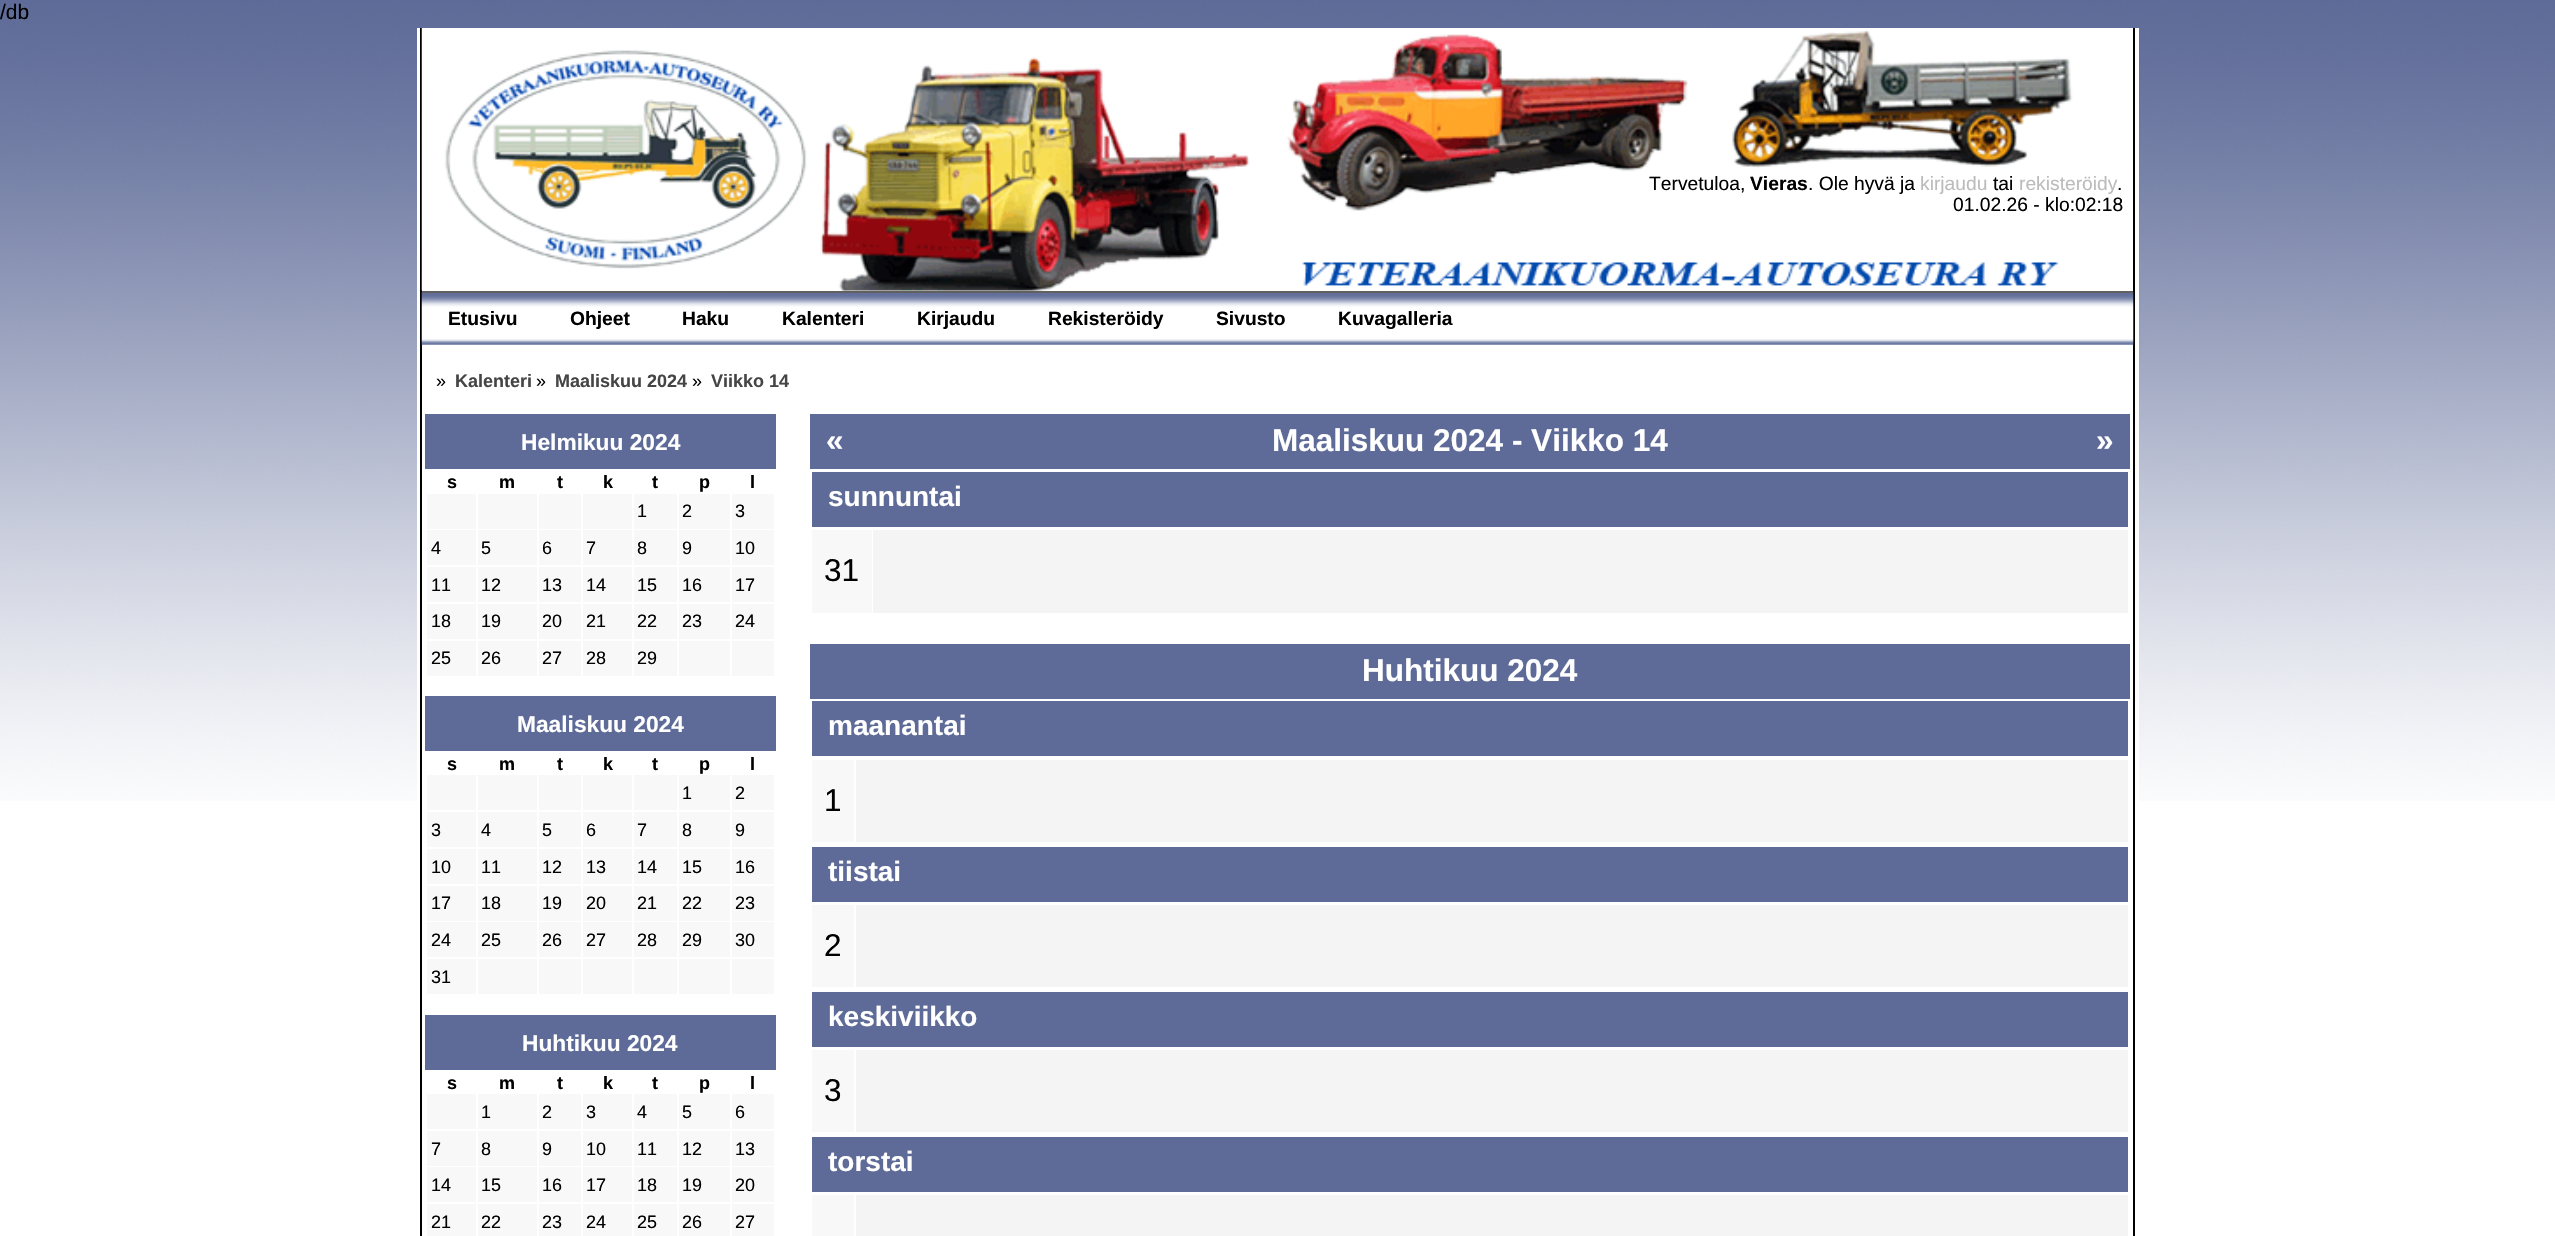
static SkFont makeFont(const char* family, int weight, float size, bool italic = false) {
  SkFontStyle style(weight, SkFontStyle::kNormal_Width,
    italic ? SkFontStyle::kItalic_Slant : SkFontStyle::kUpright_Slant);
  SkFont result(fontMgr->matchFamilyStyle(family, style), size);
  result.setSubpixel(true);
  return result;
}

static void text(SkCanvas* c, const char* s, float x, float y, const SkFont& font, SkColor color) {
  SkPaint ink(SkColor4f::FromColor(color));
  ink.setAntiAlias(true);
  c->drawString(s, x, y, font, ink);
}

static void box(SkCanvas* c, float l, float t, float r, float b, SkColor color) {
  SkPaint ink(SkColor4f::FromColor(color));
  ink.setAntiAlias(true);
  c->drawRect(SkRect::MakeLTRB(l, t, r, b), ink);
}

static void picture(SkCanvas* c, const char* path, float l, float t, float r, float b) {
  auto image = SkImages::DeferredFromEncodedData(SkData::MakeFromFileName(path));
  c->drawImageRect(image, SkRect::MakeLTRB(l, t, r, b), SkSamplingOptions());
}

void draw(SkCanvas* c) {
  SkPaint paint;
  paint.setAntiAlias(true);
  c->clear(0xffffffff);
  picture(c, "img_01.png", 0, 0, 2555, 801);
  SkFont face1 = makeFont("Liberation Sans", 400, 21);
  text(c, "/db", 0, 19, face1, 0xff000000);
  box(c, 417, 28, 2139, 801, 0xffffffff);
  box(c, 2133, 28, 2135, 1236, 0xff000000);
  box(c, 420, 28, 422, 1236, 0xff000000);
  picture(c, "img_02.png", 421, 28, 2073, 291);
  SkFont face2 = makeFont("Liberation Sans", 400, 19.25f);
  text(c, "Tervetuloa,", 1649, 190, face2, 0xff000000);
  SkFont face3 = makeFont("Liberation Sans", 700, 19.25f);
  text(c, "Vieras", 1750, 190, face3, 0xff000000);
  text(c, ". Ole hyvä ja", 1808, 190, face2, 0xff000000);
  text(c, "kirjaudu", 1920, 190, face2, 0xffbcbcbc);
  text(c, "tai", 1993, 190, face2, 0xff000000);
  text(c, "rekisteröidy", 2019, 190, face2, 0xffbcbcbc);
  text(c, ".", 2117, 190, face2, 0xff000000);
  text(c, "01.02.26 - klo:02:18", 1953, 211, face2, 0xff000000);
  picture(c, "img_03.png", 421, 292, 2134, 345);
  box(c, 422, 291, 2133, 293, 0xff606060);
  text(c, "Etusivu", 448, 325, face3, 0xff000000);
  text(c, "Ohjeet", 570, 325, face3, 0xff000000);
  text(c, "Haku", 682, 325, face3, 0xff000000);
  text(c, "Kalenteri", 782, 325, face3, 0xff000000);
  text(c, "Kirjaudu", 917, 325, face3, 0xff000000);
  text(c, "Rekisteröidy", 1048, 325, face3, 0xff000000);
  text(c, "Sivusto", 1216, 325, face3, 0xff000000);
  text(c, "Kuvagalleria", 1338, 325, face3, 0xff000000);
  SkFont face4 = makeFont("Liberation Sans", 400, 18);
  text(c, "»", 436, 387, face4, 0xff000000);
  SkFont face5 = makeFont("Liberation Sans", 700, 18);
  text(c, "Kalenteri", 455, 387, face5, 0xff454545);
  text(c, "»", 536, 387, face4, 0xff000000);
  text(c, "Maaliskuu 2024", 555, 387, face5, 0xff454545);
  text(c, "»", 692, 387, face4, 0xff000000);
  text(c, "Viikko 14", 711, 387, face5, 0xff454545);
  box(c, 425, 414, 776, 469, 0xff5e6b98);
  SkFont face6 = makeFont("Liberation Sans", 700, 22.75f);
  text(c, "Helmikuu 2024", 521, 450, face6, 0xffffffff);
  text(c, "s", 447, 488, face5, 0xff000000);
  text(c, "m", 499, 488, face5, 0xff000000);
  text(c, "t", 557, 488, face5, 0xff000000);
  text(c, "k", 603, 488, face5, 0xff000000);
  text(c, "t", 652, 488, face5, 0xff000000);
  text(c, "p", 699, 488, face5, 0xff000000);
  text(c, "l", 750, 488, face5, 0xff000000);
  box(c, 427, 494, 476, 529, 0xfff8f8f8);
  box(c, 478, 494, 537, 529, 0xfff8f8f8);
  box(c, 539, 494, 581, 529, 0xfff8f8f8);
  box(c, 583, 494, 632, 529, 0xfff8f8f8);
  box(c, 634, 494, 677, 529, 0xfff8f8f8);
  text(c, "1", 637, 517, face4, 0xff000000);
  box(c, 679, 494, 730, 529, 0xfff8f8f8);
  text(c, "2", 682, 517, face4, 0xff000000);
  box(c, 732, 494, 774, 529, 0xfff8f8f8);
  text(c, "3", 735, 517, face4, 0xff000000);
  box(c, 427, 530, 476, 565, 0xfff8f8f8);
  text(c, "4", 431, 554, face4, 0xff000000);
  box(c, 478, 530, 537, 565, 0xfff8f8f8);
  text(c, "5", 481, 554, face4, 0xff000000);
  box(c, 539, 530, 581, 565, 0xfff8f8f8);
  text(c, "6", 542, 554, face4, 0xff000000);
  box(c, 583, 530, 632, 565, 0xfff8f8f8);
  text(c, "7", 586, 554, face4, 0xff000000);
  box(c, 634, 530, 677, 565, 0xfff8f8f8);
  text(c, "8", 637, 554, face4, 0xff000000);
  box(c, 679, 530, 730, 565, 0xfff8f8f8);
  text(c, "9", 682, 554, face4, 0xff000000);
  box(c, 732, 530, 774, 565, 0xfff8f8f8);
  text(c, "10", 735, 554, face4, 0xff000000);
  box(c, 427, 567, 476, 602, 0xfff8f8f8);
  text(c, "11", 431, 591, face4, 0xff000000);
  box(c, 478, 567, 537, 602, 0xfff8f8f8);
  text(c, "12", 481, 591, face4, 0xff000000);
  box(c, 539, 567, 581, 602, 0xfff8f8f8);
  text(c, "13", 542, 591, face4, 0xff000000);
  box(c, 583, 567, 632, 602, 0xfff8f8f8);
  text(c, "14", 586, 591, face4, 0xff000000);
  box(c, 634, 567, 677, 602, 0xfff8f8f8);
  text(c, "15", 637, 591, face4, 0xff000000);
  box(c, 679, 567, 730, 602, 0xfff8f8f8);
  text(c, "16", 682, 591, face4, 0xff000000);
  box(c, 732, 567, 774, 602, 0xfff8f8f8);
  text(c, "17", 735, 591, face4, 0xff000000);
  box(c, 427, 604, 476, 639, 0xfff8f8f8);
  text(c, "18", 431, 627, face4, 0xff000000);
  box(c, 478, 604, 537, 639, 0xfff8f8f8);
  text(c, "19", 481, 627, face4, 0xff000000);
  box(c, 539, 604, 581, 639, 0xfff8f8f8);
  text(c, "20", 542, 627, face4, 0xff000000);
  box(c, 583, 604, 632, 639, 0xfff8f8f8);
  text(c, "21", 586, 627, face4, 0xff000000);
  box(c, 634, 604, 677, 639, 0xfff8f8f8);
  text(c, "22", 637, 627, face4, 0xff000000);
  box(c, 679, 604, 730, 639, 0xfff8f8f8);
  text(c, "23", 682, 627, face4, 0xff000000);
  box(c, 732, 604, 774, 639, 0xfff8f8f8);
  text(c, "24", 735, 627, face4, 0xff000000);
  box(c, 427, 641, 476, 676, 0xfff8f8f8);
  text(c, "25", 431, 664, face4, 0xff000000);
  box(c, 478, 641, 537, 676, 0xfff8f8f8);
  text(c, "26", 481, 664, face4, 0xff000000);
  box(c, 539, 641, 581, 676, 0xfff8f8f8);
  text(c, "27", 542, 664, face4, 0xff000000);
  box(c, 583, 641, 632, 676, 0xfff8f8f8);
  text(c, "28", 586, 664, face4, 0xff000000);
  box(c, 634, 641, 677, 676, 0xfff8f8f8);
  text(c, "29", 637, 664, face4, 0xff000000);
  box(c, 679, 641, 730, 676, 0xfff8f8f8);
  box(c, 732, 641, 774, 676, 0xfff8f8f8);
  box(c, 425, 696, 776, 751, 0xff5e6b98);
  text(c, "Maaliskuu 2024", 517, 732, face6, 0xffffffff);
  text(c, "s", 447, 770, face5, 0xff000000);
  text(c, "m", 499, 770, face5, 0xff000000);
  text(c, "t", 557, 770, face5, 0xff000000);
  text(c, "k", 603, 770, face5, 0xff000000);
  text(c, "t", 652, 770, face5, 0xff000000);
  text(c, "p", 699, 770, face5, 0xff000000);
  text(c, "l", 750, 770, face5, 0xff000000);
  box(c, 427, 775, 476, 810, 0xfff8f8f8);
  box(c, 478, 775, 537, 810, 0xfff8f8f8);
  box(c, 539, 775, 581, 810, 0xfff8f8f8);
  box(c, 583, 775, 632, 810, 0xfff8f8f8);
  box(c, 634, 775, 677, 810, 0xfff8f8f8);
  box(c, 679, 775, 730, 810, 0xfff8f8f8);
  text(c, "1", 682, 799, face4, 0xff000000);
  box(c, 732, 775, 774, 810, 0xfff8f8f8);
  text(c, "2", 735, 799, face4, 0xff000000);
  box(c, 427, 812, 476, 847, 0xfff8f8f8);
  text(c, "3", 431, 836, face4, 0xff000000);
  box(c, 478, 812, 537, 847, 0xfff8f8f8);
  text(c, "4", 481, 836, face4, 0xff000000);
  box(c, 539, 812, 581, 847, 0xfff8f8f8);
  text(c, "5", 542, 836, face4, 0xff000000);
  box(c, 583, 812, 632, 847, 0xfff8f8f8);
  text(c, "6", 586, 836, face4, 0xff000000);
  box(c, 634, 812, 677, 847, 0xfff8f8f8);
  text(c, "7", 637, 836, face4, 0xff000000);
  box(c, 679, 812, 730, 847, 0xfff8f8f8);
  text(c, "8", 682, 836, face4, 0xff000000);
  box(c, 732, 812, 774, 847, 0xfff8f8f8);
  text(c, "9", 735, 836, face4, 0xff000000);
  box(c, 427, 849, 476, 884, 0xfff8f8f8);
  text(c, "10", 431, 873, face4, 0xff000000);
  box(c, 478, 849, 537, 884, 0xfff8f8f8);
  text(c, "11", 481, 873, face4, 0xff000000);
  box(c, 539, 849, 581, 884, 0xfff8f8f8);
  text(c, "12", 542, 873, face4, 0xff000000);
  box(c, 583, 849, 632, 884, 0xfff8f8f8);
  text(c, "13", 586, 873, face4, 0xff000000);
  box(c, 634, 849, 677, 884, 0xfff8f8f8);
  text(c, "14", 637, 873, face4, 0xff000000);
  box(c, 679, 849, 730, 884, 0xfff8f8f8);
  text(c, "15", 682, 873, face4, 0xff000000);
  box(c, 732, 849, 774, 884, 0xfff8f8f8);
  text(c, "16", 735, 873, face4, 0xff000000);
  box(c, 427, 886, 476, 921, 0xfff8f8f8);
  text(c, "17", 431, 909, face4, 0xff000000);
  box(c, 478, 886, 537, 921, 0xfff8f8f8);
  text(c, "18", 481, 909, face4, 0xff000000);
  box(c, 539, 886, 581, 921, 0xfff8f8f8);
  text(c, "19", 542, 909, face4, 0xff000000);
  box(c, 583, 886, 632, 921, 0xfff8f8f8);
  text(c, "20", 586, 909, face4, 0xff000000);
  box(c, 634, 886, 677, 921, 0xfff8f8f8);
  text(c, "21", 637, 909, face4, 0xff000000);
  box(c, 679, 886, 730, 921, 0xfff8f8f8);
  text(c, "22", 682, 909, face4, 0xff000000);
  box(c, 732, 886, 774, 921, 0xfff8f8f8);
  text(c, "23", 735, 909, face4, 0xff000000);
  box(c, 427, 922, 476, 957, 0xfff8f8f8);
  text(c, "24", 431, 946, face4, 0xff000000);
  box(c, 478, 922, 537, 957, 0xfff8f8f8);
  text(c, "25", 481, 946, face4, 0xff000000);
  box(c, 539, 922, 581, 957, 0xfff8f8f8);
  text(c, "26", 542, 946, face4, 0xff000000);
  box(c, 583, 922, 632, 957, 0xfff8f8f8);
  text(c, "27", 586, 946, face4, 0xff000000);
  box(c, 634, 922, 677, 957, 0xfff8f8f8);
  text(c, "28", 637, 946, face4, 0xff000000);
  box(c, 679, 922, 730, 957, 0xfff8f8f8);
  text(c, "29", 682, 946, face4, 0xff000000);
  box(c, 732, 922, 774, 957, 0xfff8f8f8);
  text(c, "30", 735, 946, face4, 0xff000000);
  box(c, 427, 959, 476, 994, 0xfff8f8f8);
  text(c, "31", 431, 983, face4, 0xff000000);
  box(c, 478, 959, 537, 994, 0xfff8f8f8);
  box(c, 539, 959, 581, 994, 0xfff8f8f8);
  box(c, 583, 959, 632, 994, 0xfff8f8f8);
  box(c, 634, 959, 677, 994, 0xfff8f8f8);
  box(c, 679, 959, 730, 994, 0xfff8f8f8);
  box(c, 732, 959, 774, 994, 0xfff8f8f8);
  box(c, 425, 1015, 776, 1070, 0xff5e6b98);
  text(c, "Huhtikuu 2024", 522, 1051, face6, 0xffffffff);
  text(c, "s", 447, 1089, face5, 0xff000000);
  text(c, "m", 499, 1089, face5, 0xff000000);
  text(c, "t", 557, 1089, face5, 0xff000000);
  text(c, "k", 603, 1089, face5, 0xff000000);
  text(c, "t", 652, 1089, face5, 0xff000000);
  text(c, "p", 699, 1089, face5, 0xff000000);
  text(c, "l", 750, 1089, face5, 0xff000000);
  box(c, 427, 1094, 476, 1129, 0xfff8f8f8);
  box(c, 478, 1094, 537, 1129, 0xfff8f8f8);
  text(c, "1", 481, 1118, face4, 0xff000000);
  box(c, 539, 1094, 581, 1129, 0xfff8f8f8);
  text(c, "2", 542, 1118, face4, 0xff000000);
  box(c, 583, 1094, 632, 1129, 0xfff8f8f8);
  text(c, "3", 586, 1118, face4, 0xff000000);
  box(c, 634, 1094, 677, 1129, 0xfff8f8f8);
  text(c, "4", 637, 1118, face4, 0xff000000);
  box(c, 679, 1094, 730, 1129, 0xfff8f8f8);
  text(c, "5", 682, 1118, face4, 0xff000000);
  box(c, 732, 1094, 774, 1129, 0xfff8f8f8);
  text(c, "6", 735, 1118, face4, 0xff000000);
  box(c, 427, 1131, 476, 1166, 0xfff8f8f8);
  text(c, "7", 431, 1155, face4, 0xff000000);
  box(c, 478, 1131, 537, 1166, 0xfff8f8f8);
  text(c, "8", 481, 1155, face4, 0xff000000);
  box(c, 539, 1131, 581, 1166, 0xfff8f8f8);
  text(c, "9", 542, 1155, face4, 0xff000000);
  box(c, 583, 1131, 632, 1166, 0xfff8f8f8);
  text(c, "10", 586, 1155, face4, 0xff000000);
  box(c, 634, 1131, 677, 1166, 0xfff8f8f8);
  text(c, "11", 637, 1155, face4, 0xff000000);
  box(c, 679, 1131, 730, 1166, 0xfff8f8f8);
  text(c, "12", 682, 1155, face4, 0xff000000);
  box(c, 732, 1131, 774, 1166, 0xfff8f8f8);
  text(c, "13", 735, 1155, face4, 0xff000000);
  box(c, 427, 1167, 476, 1202, 0xfff8f8f8);
  text(c, "14", 431, 1191, face4, 0xff000000);
  box(c, 478, 1167, 537, 1202, 0xfff8f8f8);
  text(c, "15", 481, 1191, face4, 0xff000000);
  box(c, 539, 1167, 581, 1202, 0xfff8f8f8);
  text(c, "16", 542, 1191, face4, 0xff000000);
  box(c, 583, 1167, 632, 1202, 0xfff8f8f8);
  text(c, "17", 586, 1191, face4, 0xff000000);
  box(c, 634, 1167, 677, 1202, 0xfff8f8f8);
  text(c, "18", 637, 1191, face4, 0xff000000);
  box(c, 679, 1167, 730, 1202, 0xfff8f8f8);
  text(c, "19", 682, 1191, face4, 0xff000000);
  box(c, 732, 1167, 774, 1202, 0xfff8f8f8);
  text(c, "20", 735, 1191, face4, 0xff000000);
  box(c, 427, 1204, 476, 1236, 0xfff8f8f8);
  text(c, "21", 431, 1228, face4, 0xff000000);
  box(c, 478, 1204, 537, 1236, 0xfff8f8f8);
  text(c, "22", 481, 1228, face4, 0xff000000);
  box(c, 539, 1204, 581, 1236, 0xfff8f8f8);
  text(c, "23", 542, 1228, face4, 0xff000000);
  box(c, 583, 1204, 632, 1236, 0xfff8f8f8);
  text(c, "24", 586, 1228, face4, 0xff000000);
  box(c, 634, 1204, 677, 1236, 0xfff8f8f8);
  text(c, "25", 637, 1228, face4, 0xff000000);
  box(c, 679, 1204, 730, 1236, 0xfff8f8f8);
  text(c, "26", 682, 1228, face4, 0xff000000);
  box(c, 732, 1204, 774, 1236, 0xfff8f8f8);
  text(c, "27", 735, 1228, face4, 0xff000000);
  box(c, 810, 414, 2130, 469, 0xff5e6b98);
  SkFont face7 = makeFont("Liberation Sans", 700, 31.5f);
  text(c, "«", 826, 451, face7, 0xffffffff);
  text(c, "Maaliskuu 2024 - Viikko 14", 1272, 451, face7, 0xffffffff);
  text(c, "»", 2096, 451, face7, 0xffffffff);
  box(c, 812, 472, 2128, 527, 0xff5e6b98);
  SkFont face8 = makeFont("Liberation Sans", 700, 28);
  text(c, "sunnuntai", 828, 506, face8, 0xffffffff);
  box(c, 812, 530, 872, 613, 0xfff8f8f8);
  SkFont face9 = makeFont("Liberation Sans", 400, 31.5f);
  text(c, "31", 824, 581, face9, 0xff000000);
  box(c, 873, 530, 2128, 613, 0xfff4f4f4);
  box(c, 810, 644, 2130, 699, 0xff5e6b98);
  text(c, "Huhtikuu 2024", 1362, 681, face7, 0xffffffff);
  box(c, 812, 701, 2128, 756, 0xff5e6b98);
  text(c, "maanantai", 828, 735, face8, 0xffffffff);
  box(c, 812, 760, 854, 842, 0xfff8f8f8);
  text(c, "1", 824, 811, face9, 0xff000000);
  box(c, 856, 760, 2128, 842, 0xfff4f4f4);
  box(c, 812, 847, 2128, 902, 0xff5e6b98);
  text(c, "tiistai", 828, 881, face8, 0xffffffff);
  box(c, 812, 905, 854, 987, 0xfff8f8f8);
  text(c, "2", 824, 956, face9, 0xff000000);
  box(c, 856, 905, 2128, 987, 0xfff4f4f4);
  box(c, 812, 992, 2128, 1047, 0xff5e6b98);
  text(c, "keskiviikko", 828, 1026, face8, 0xffffffff);
  box(c, 812, 1050, 854, 1132, 0xfff8f8f8);
  text(c, "3", 824, 1101, face9, 0xff000000);
  box(c, 856, 1050, 2128, 1132, 0xfff4f4f4);
  box(c, 812, 1137, 2128, 1192, 0xff5e6b98);
  text(c, "torstai", 828, 1171, face8, 0xffffffff);
  box(c, 812, 1195, 854, 1236, 0xfff8f8f8);
  box(c, 856, 1195, 2128, 1236, 0xfff4f4f4);
}
